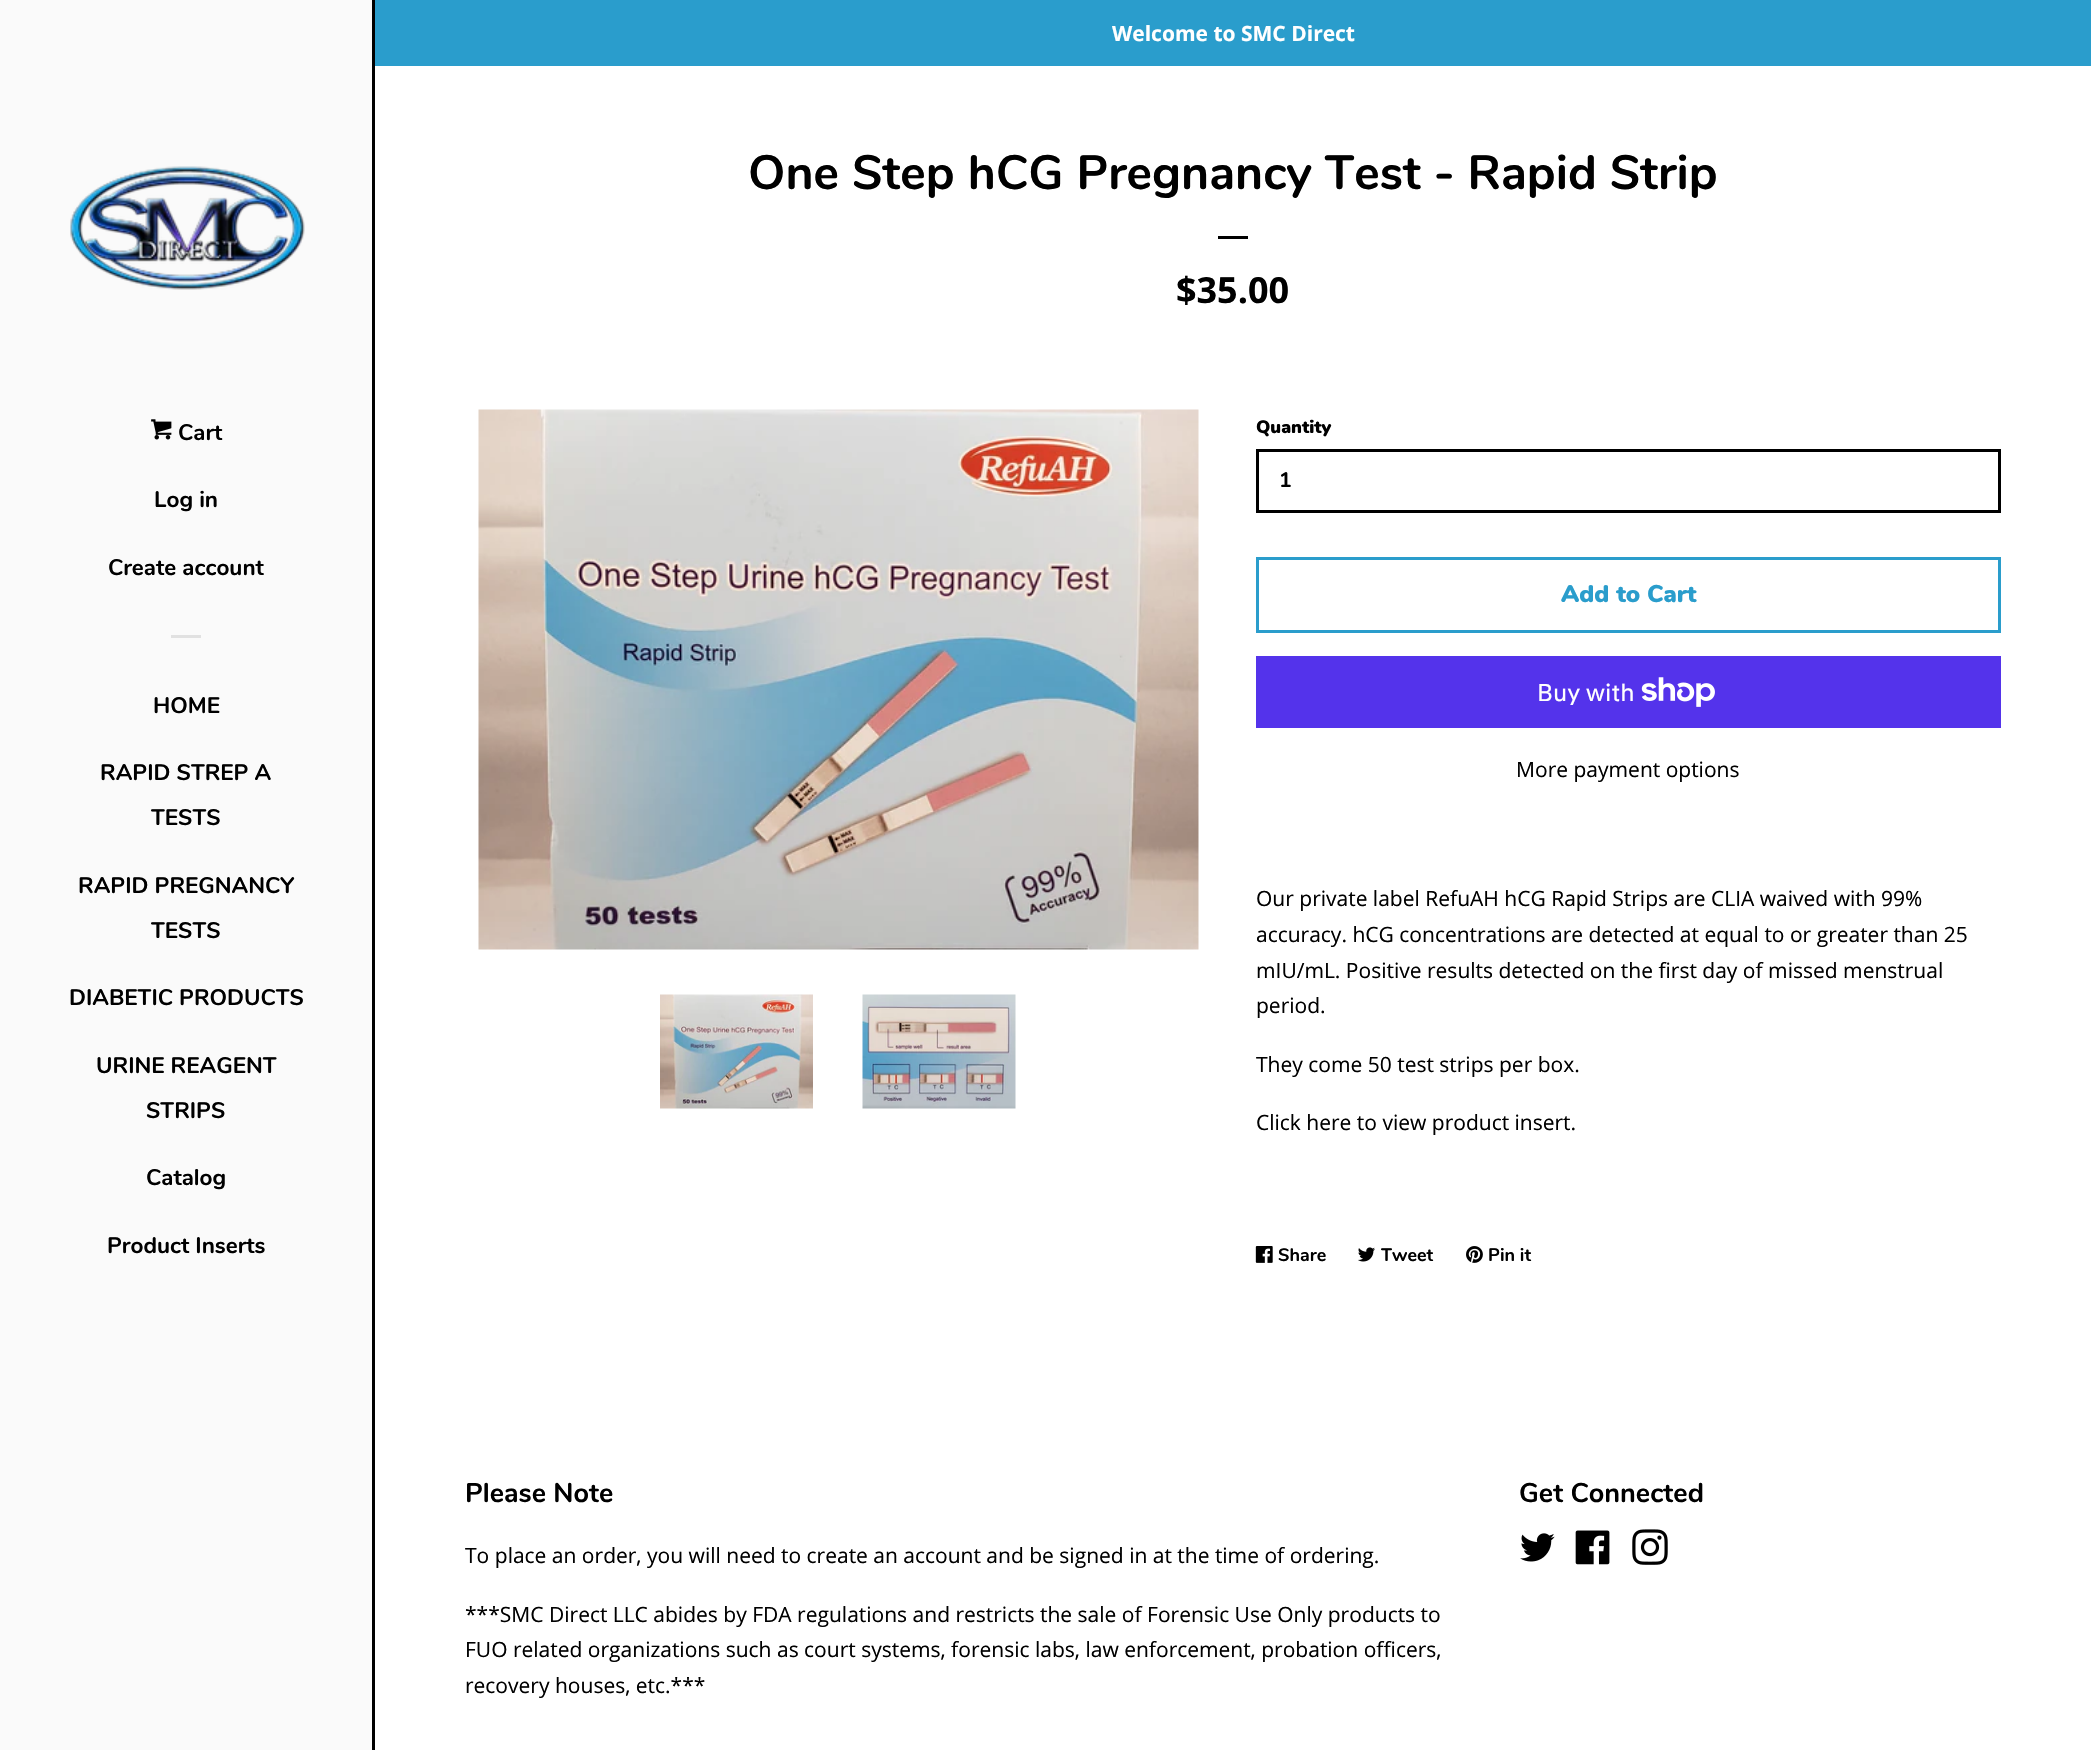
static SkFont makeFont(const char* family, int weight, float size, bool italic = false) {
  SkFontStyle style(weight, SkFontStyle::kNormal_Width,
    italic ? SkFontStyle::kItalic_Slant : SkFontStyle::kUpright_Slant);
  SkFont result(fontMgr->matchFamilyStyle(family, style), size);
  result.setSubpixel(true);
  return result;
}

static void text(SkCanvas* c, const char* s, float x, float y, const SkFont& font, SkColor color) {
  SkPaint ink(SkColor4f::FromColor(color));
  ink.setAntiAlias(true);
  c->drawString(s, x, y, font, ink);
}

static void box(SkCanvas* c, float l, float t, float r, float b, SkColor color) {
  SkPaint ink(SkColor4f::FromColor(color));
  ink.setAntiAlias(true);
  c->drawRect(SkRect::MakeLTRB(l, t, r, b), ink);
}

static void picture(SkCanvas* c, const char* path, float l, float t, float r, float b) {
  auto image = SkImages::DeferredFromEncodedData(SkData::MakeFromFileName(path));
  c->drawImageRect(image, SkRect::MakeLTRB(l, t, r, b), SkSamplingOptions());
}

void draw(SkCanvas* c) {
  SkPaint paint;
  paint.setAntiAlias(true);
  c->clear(0xfffafafa);
  box(c, 372, 0, 375, 1750, 0xff000000);
  picture(c, "img_01.png", 70, 166, 305, 290);
  picture(c, "img_02.png", 151, 419, 172, 440);
  SkFont face1 = makeFont("Nunito", 700, 22.5f);
  text(c, "Cart", 178, 440, face1, 0xff000000);
  text(c, "Log in", 154, 507, face1, 0xff000000);
  text(c, "Create account", 108, 575, face1, 0xff000000);
  box(c, 171, 635, 201, 638, 0xffe1e1e1);
  text(c, "HOME", 153, 713, face1, 0xff000000);
  text(c, "RAPID STREP A", 100, 780, face1, 0xff000000);
  text(c, "TESTS", 151, 825, face1, 0xff000000);
  text(c, "RAPID PREGNANCY", 78, 893, face1, 0xff000000);
  text(c, "TESTS", 151, 938, face1, 0xff000000);
  text(c, "DIABETIC PRODUCTS", 69, 1005, face1, 0xff000000);
  text(c, "URINE REAGENT", 96, 1073, face1, 0xff000000);
  text(c, "STRIPS", 146, 1118, face1, 0xff000000);
  text(c, "Catalog", 146, 1185, face1, 0xff000000);
  text(c, "Product Inserts", 107, 1253, face1, 0xff000000);
  box(c, 375, 66, 2091, 1750, 0xffffffff);
  box(c, 375, 0, 2091, 66, 0xff2a9dcc);
  SkFont face2 = makeFont("Open Sans", 700, 21);
  text(c, "Welcome to SMC Direct", 1112, 41, face2, 0xffffffff);
  SkFont face3 = makeFont("Nunito", 700, 48);
  text(c, "One Step hCG Pregnancy Test - Rapid Strip", 748, 189, face3, 0xff000000);
  box(c, 1218, 236, 1248, 239, 0xff000000);
  SkFont face4 = makeFont("Open Sans", 700, 36);
  text(c, "$35.00", 1176, 303, face4, 0xff000000);
  picture(c, "img_03.png", 478, 409, 1199, 950);
  picture(c, "img_04.png", 660, 994, 813, 1109);
  picture(c, "img_05.png", 862, 994, 1016, 1109);
  SkFont face5 = makeFont("Nunito", 900, 18);
  text(c, "Quantity", 1256, 433, face5, 0xff000000);
  paint.setStyle(SkPaint::kStroke_Style);
  paint.setStrokeWidth(3);
  paint.setColor(0xff000000);
  c->drawRect(SkRect::MakeLTRB(1257.5f, 450.5f, 1999.5f, 511.5f), paint);
  SkFont face6 = makeFont("Nunito", 700, 21);
  text(c, "1", 1279, 487, face6, 0xff000000);
  paint.setColor(0xff2a9dcc);
  c->drawRect(SkRect::MakeLTRB(1257.5f, 558.5f, 1999.5f, 631.5f), paint);
  SkFont face7 = makeFont("Nunito", 900, 24);
  text(c, "Add to Cart", 1561, 602, face7, 0xff2a9dcc);
  box(c, 1256, 656, 2001, 728, 0xff5433eb);
  SkFont face8 = makeFont("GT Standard", 400, 24);
  text(c, "Buy with", 1537, 701, face8, 0xffffffff);
  picture(c, "img_06.png", 1641, 677, 1715, 707);
  SkFont face9 = makeFont("Open Sans", 400, 21);
  text(c, "More payment options", 1516, 777, face9, 0xff000000);
  text(c, "Our private label RefuAH hCG Rapid Strips are CLIA waived with 99%", 1256, 906, face9, 0xff000000);
  text(c, "accuracy. hCG concentrations are detected at equal to or greater than 25", 1256, 942, face9, 0xff000000);
  text(c, "mIU/mL. Positive results detected on the first day of missed menstrual", 1256, 978, face9, 0xff000000);
  text(c, "period.", 1256, 1013, face9, 0xff000000);
  text(c, "They come 50 test strips per box.", 1256, 1072, face9, 0xff000000);
  text(c, "Click here to view product insert.", 1256, 1130, face9, 0xff000000);
  picture(c, "img_07.png", 1255, 1246, 1273, 1263);
  SkFont face10 = makeFont("Nunito", 700, 18);
  text(c, "Share", 1278, 1261, face10, 0xff000000);
  picture(c, "img_08.png", 1358, 1247, 1375, 1262);
  text(c, "Tweet", 1381, 1261, face10, 0xff000000);
  picture(c, "img_09.png", 1466, 1246, 1483, 1263);
  text(c, "Pin it", 1488, 1261, face10, 0xff000000);
  SkFont face11 = makeFont("Nunito", 700, 27);
  text(c, "Please Note", 465, 1502, face11, 0xff000000);
  text(c, "To place an order, you will need to create an account and be signed in at the time of ordering.", 465, 1563, face9, 0xff000000);
  text(c, "***SMC Direct LLC abides by FDA regulations and restricts the sale of Forensic Use Only products to", 465, 1622, face9, 0xff000000);
  text(c, "FUO related organizations such as court systems, forensic labs, law enforcement, probation officers,", 465, 1657, face9, 0xff000000);
  text(c, "recovery houses, etc.***", 465, 1693, face9, 0xff000000);
  text(c, "Get Connected", 1519, 1502, face11, 0xff000000);
  picture(c, "img_10.png", 1520, 1533, 1555, 1562);
  picture(c, "img_11.png", 1575, 1530, 1610, 1565);
  picture(c, "img_12.png", 1632, 1529, 1668, 1565);
}
